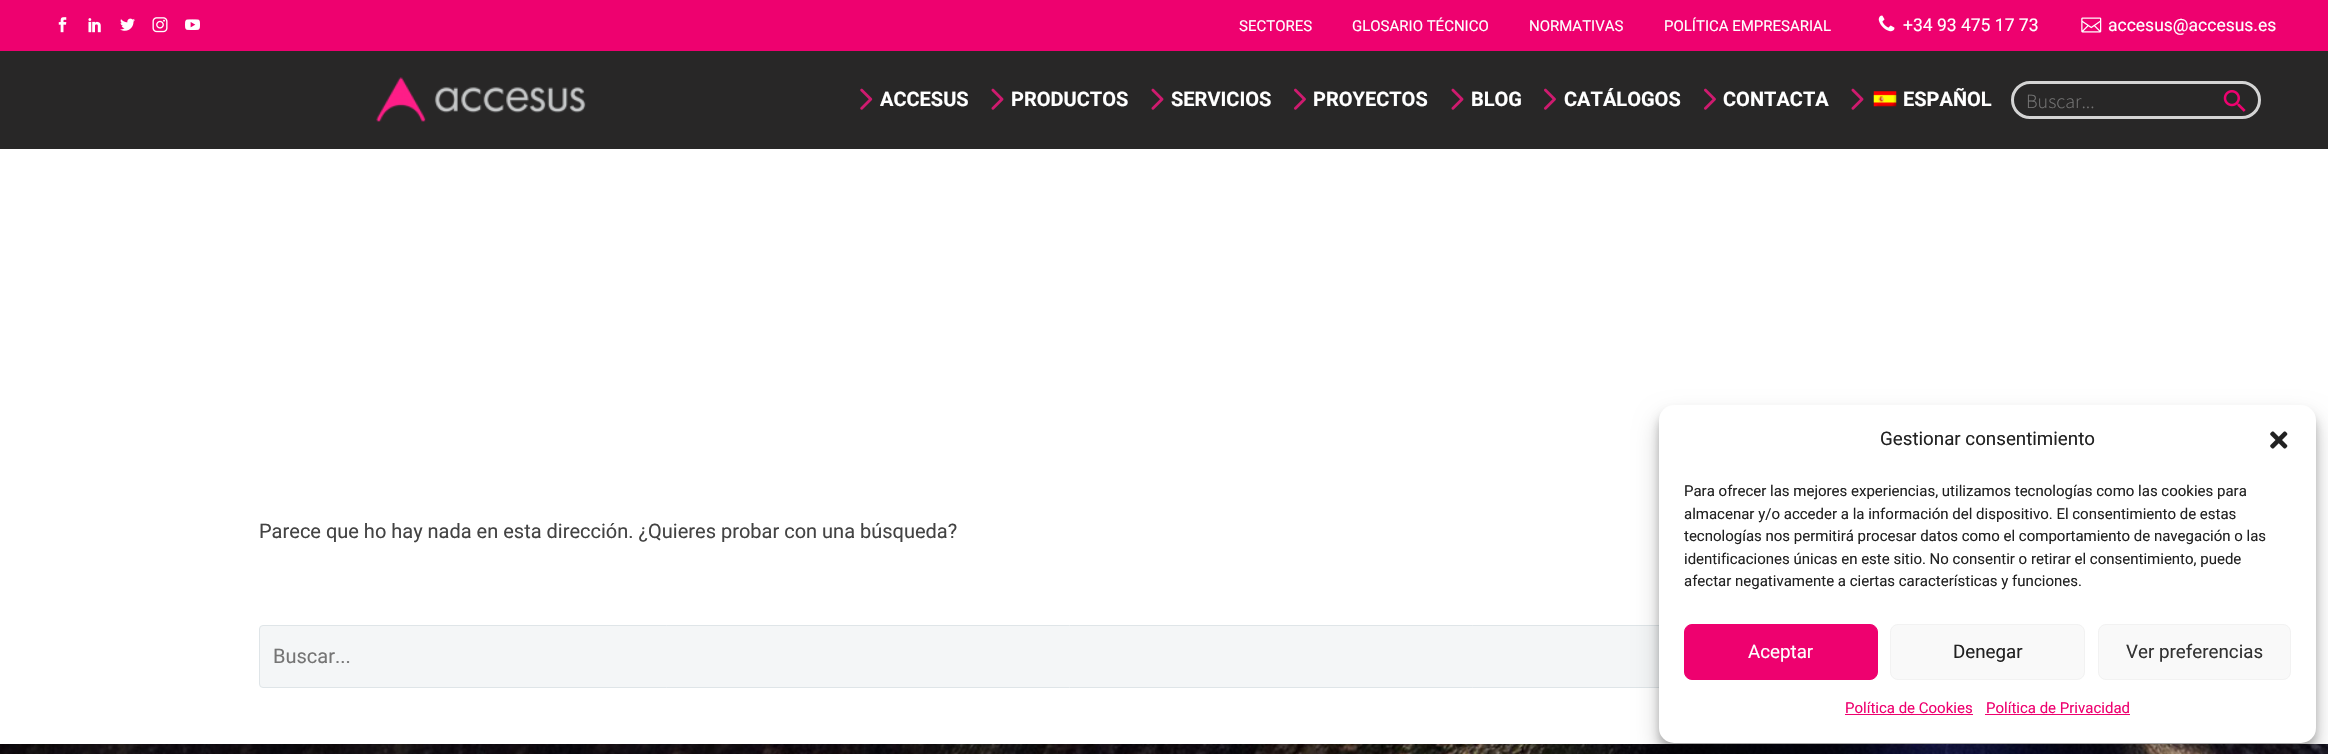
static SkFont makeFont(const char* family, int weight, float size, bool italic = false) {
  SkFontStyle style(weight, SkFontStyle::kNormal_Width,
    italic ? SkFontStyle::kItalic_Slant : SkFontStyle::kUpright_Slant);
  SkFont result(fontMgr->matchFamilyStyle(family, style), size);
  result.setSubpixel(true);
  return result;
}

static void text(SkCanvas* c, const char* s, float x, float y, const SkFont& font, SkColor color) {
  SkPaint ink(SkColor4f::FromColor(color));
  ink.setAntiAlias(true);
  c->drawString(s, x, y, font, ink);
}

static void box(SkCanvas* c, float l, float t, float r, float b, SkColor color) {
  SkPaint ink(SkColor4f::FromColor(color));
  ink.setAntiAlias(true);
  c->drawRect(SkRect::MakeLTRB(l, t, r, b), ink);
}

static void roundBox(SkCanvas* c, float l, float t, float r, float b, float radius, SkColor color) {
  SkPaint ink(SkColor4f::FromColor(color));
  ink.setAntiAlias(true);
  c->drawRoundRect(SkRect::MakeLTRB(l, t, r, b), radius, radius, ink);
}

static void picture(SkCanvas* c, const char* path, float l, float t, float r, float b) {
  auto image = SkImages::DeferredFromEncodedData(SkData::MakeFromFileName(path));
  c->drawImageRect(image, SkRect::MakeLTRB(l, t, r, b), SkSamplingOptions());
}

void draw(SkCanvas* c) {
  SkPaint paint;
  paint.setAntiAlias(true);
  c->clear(0xff282727);
  box(c, 0, 0, 2328, 51, 0xffee016f);
  picture(c, "img_01.png", 58, 17, 67, 33);
  picture(c, "img_02.png", 88, 18, 101, 33);
  picture(c, "img_03.png", 120, 18, 135, 31);
  picture(c, "img_04.png", 152, 17, 168, 33);
  picture(c, "img_05.png", 185, 19, 200, 30);
  SkFont face1 = makeFont("Roboto", 400, 15);
  text(c, "SECTORES", 1239, 31, face1, 0xffffffff);
  text(c, "GLOSARIO TÉCNICO", 1352, 31, face1, 0xffffffff);
  text(c, "NORMATIVAS", 1529, 31, face1, 0xffffffff);
  text(c, "POLÍTICA EMPRESARIAL", 1664, 31, face1, 0xffffffff);
  picture(c, "img_06.png", 1878, 15, 1895, 32);
  SkFont face2 = makeFont("Roboto", 400, 17.5f);
  text(c, "+34 93 475 17 73", 1903, 31, face2, 0xffffffff);
  picture(c, "img_07.png", 2081, 17, 2102, 33);
  text(c, "accesus@accesus.es", 2108, 31, face2, 0xffffffff);
  picture(c, "img_08.png", 376, 77, 586, 122);
  picture(c, "img_09.png", 860, 88, 873, 110);
  SkFont face3 = makeFont("Roboto", 700, 20);
  text(c, "ACCESUS", 880, 106, face3, 0xffffffff);
  picture(c, "img_10.png", 991, 88, 1004, 110);
  text(c, "PRODUCTOS", 1011, 106, face3, 0xffffffff);
  picture(c, "img_10.png", 1151, 88, 1164, 110);
  text(c, "SERVICIOS", 1171, 106, face3, 0xffffffff);
  picture(c, "img_11.png", 1294, 88, 1306, 110);
  text(c, "PROYECTOS", 1313, 106, face3, 0xffffffff);
  picture(c, "img_10.png", 1451, 88, 1464, 110);
  text(c, "BLOG", 1471, 106, face3, 0xffffffff);
  picture(c, "img_11.png", 1544, 88, 1556, 110);
  text(c, "CATÁLOGOS", 1564, 106, face3, 0xffffffff);
  picture(c, "img_11.png", 1704, 88, 1716, 110);
  text(c, "CONTACTA", 1723, 106, face3, 0xffffffff);
  picture(c, "img_10.png", 1851, 88, 1864, 110);
  picture(c, "img_12.png", 1873, 91, 1897, 107);
  text(c, "ESPAÑOL", 1903, 106, face3, 0xffffffff);
  paint.setStyle(SkPaint::kStroke_Style);
  paint.setStrokeWidth(3);
  paint.setColor(0xffd4d4d4);
  c->drawRoundRect(SkRect::MakeLTRB(2012.5f, 82.5f, 2259.5f, 117.5f), 17.5f, 17.5f, paint);
  SkFont face4 = makeFont("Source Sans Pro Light", 300, 20);
  text(c, "Buscar...", 2026, 108, face4, 0xff757575);
  picture(c, "img_13.png", 2223, 90, 2246, 112);
  box(c, 0, 149, 2328, 744, 0xffffffff);
  SkFont face5 = makeFont("Roboto", 400, 20);
  text(c, "Parece que ho hay nada en esta dirección. ¿Quieres probar con una búsqueda?", 259, 538, face5, 0xff434343);
  paint.setStyle(SkPaint::kFill_Style);
  paint.setColor(0xfff4f6f7);
  c->drawRoundRect(SkRect::MakeLTRB(259.5f, 625.5f, 1879.5f, 687.5f), 3.5f, 3.5f, paint);
  paint.setStyle(SkPaint::kStroke_Style);
  paint.setStrokeWidth(1);
  paint.setColor(0xffdfe5e8);
  c->drawRoundRect(SkRect::MakeLTRB(259.5f, 625.5f, 1879.5f, 687.5f), 3.5f, 3.5f, paint);
  text(c, "Buscar...", 273, 663, face5, 0xff757575);
  picture(c, "img_14.png", 0, 744, 2328, 754);
  paint.setStyle(SkPaint::kFill_Style);
  paint.setColor(0x3b000000);
  paint.setMaskFilter(SkMaskFilter::MakeBlur(kNormal_SkBlurStyle, 4));
  c->drawRoundRect(SkRect::MakeLTRB(1659, 413, 2316, 750), 15, 15, paint);
  paint.setMaskFilter(nullptr);
  paint.setColor(0x30000000);
  paint.setMaskFilter(SkMaskFilter::MakeBlur(kNormal_SkBlurStyle, 12.5f));
  c->drawRoundRect(SkRect::MakeLTRB(1659, 418, 2316, 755), 15, 15, paint);
  paint.setMaskFilter(nullptr);
  roundBox(c, 1659, 405, 2316, 743, 15, 0xffffffff);
  SkFont face6 = makeFont("Roboto", 400, 18.75f);
  text(c, "Gestionar consentimiento", 1880, 445, face6, 0xff222222);
  picture(c, "img_15.png", 2270, 431, 2288, 449);
  text(c, "Para ofrecer las mejores experiencias, utilizamos tecnologías como las cookies para", 1684, 496, face1, 0xff222222);
  text(c, "almacenar y/o acceder a la información del dispositivo. El consentimiento de estas", 1684, 519, face1, 0xff222222);
  text(c, "tecnologías nos permitirá procesar datos como el comportamiento de navegación o las", 1684, 541, face1, 0xff222222);
  text(c, "identificaciones únicas en este sitio. No consentir o retirar el consentimiento, puede", 1684, 564, face1, 0xff222222);
  text(c, "afectar negativamente a ciertas características y funciones.", 1684, 586, face1, 0xff222222);
  paint.setColor(0xffee016f);
  c->drawRoundRect(SkRect::MakeLTRB(1684.5f, 624.5f, 1877.5f, 679.5f), 7.5f, 7.5f, paint);
  paint.setStyle(SkPaint::kStroke_Style);
  c->drawRoundRect(SkRect::MakeLTRB(1684.5f, 624.5f, 1877.5f, 679.5f), 7.5f, 7.5f, paint);
  text(c, "Aceptar", 1748, 658, face6, 0xffffffff);
  paint.setStyle(SkPaint::kFill_Style);
  paint.setColor(0xfff9f9f9);
  c->drawRoundRect(SkRect::MakeLTRB(1890.5f, 624.5f, 2084.5f, 679.5f), 7.5f, 7.5f, paint);
  paint.setStyle(SkPaint::kStroke_Style);
  paint.setColor(0xfff2f2f2);
  c->drawRoundRect(SkRect::MakeLTRB(1890.5f, 624.5f, 2084.5f, 679.5f), 7.5f, 7.5f, paint);
  text(c, "Denegar", 1953, 658, face6, 0xff222222);
  paint.setStyle(SkPaint::kFill_Style);
  paint.setColor(0xfff9f9f9);
  c->drawRoundRect(SkRect::MakeLTRB(2098.5f, 624.5f, 2290.5f, 679.5f), 7.5f, 7.5f, paint);
  paint.setStyle(SkPaint::kStroke_Style);
  paint.setColor(0xfff2f2f2);
  c->drawRoundRect(SkRect::MakeLTRB(2098.5f, 624.5f, 2290.5f, 679.5f), 7.5f, 7.5f, paint);
  text(c, "Ver preferencias", 2126, 658, face6, 0xff333333);
  text(c, "Política de Cookies", 1845, 713, face1, 0xffee016f);
  box(c, 1845, 714, 1973, 715, 0xffee016f);
  text(c, "Política de Privacidad", 1986, 713, face1, 0xffee016f);
  box(c, 1985, 714, 2130, 715, 0xffee016f);
}
